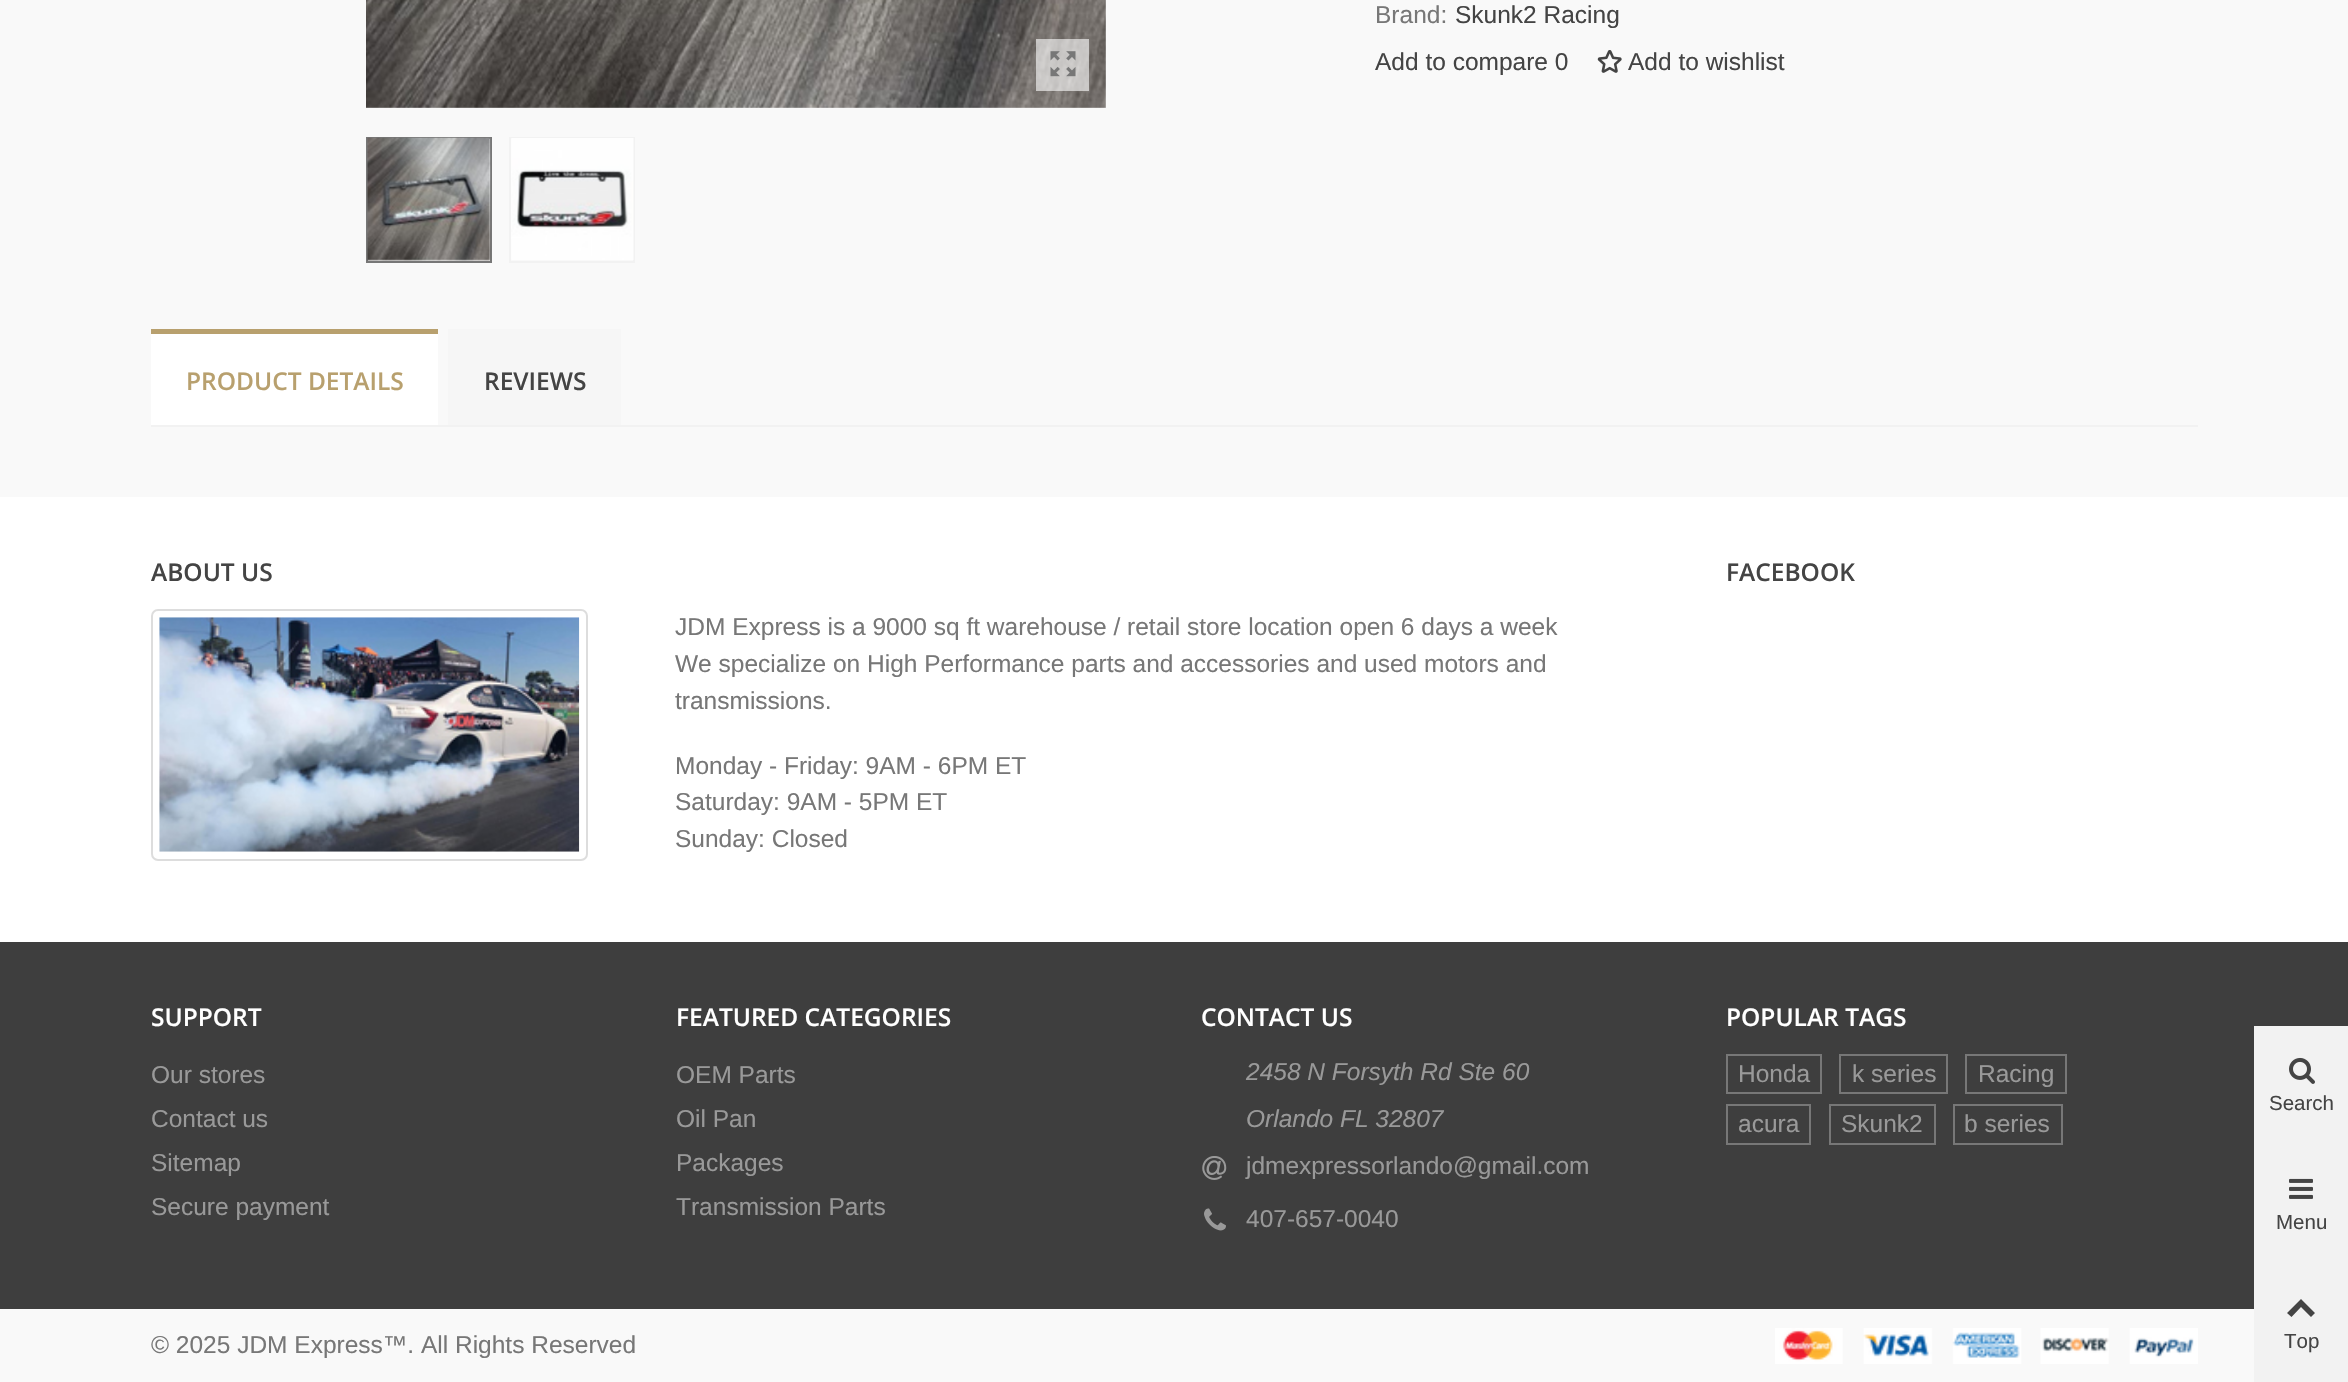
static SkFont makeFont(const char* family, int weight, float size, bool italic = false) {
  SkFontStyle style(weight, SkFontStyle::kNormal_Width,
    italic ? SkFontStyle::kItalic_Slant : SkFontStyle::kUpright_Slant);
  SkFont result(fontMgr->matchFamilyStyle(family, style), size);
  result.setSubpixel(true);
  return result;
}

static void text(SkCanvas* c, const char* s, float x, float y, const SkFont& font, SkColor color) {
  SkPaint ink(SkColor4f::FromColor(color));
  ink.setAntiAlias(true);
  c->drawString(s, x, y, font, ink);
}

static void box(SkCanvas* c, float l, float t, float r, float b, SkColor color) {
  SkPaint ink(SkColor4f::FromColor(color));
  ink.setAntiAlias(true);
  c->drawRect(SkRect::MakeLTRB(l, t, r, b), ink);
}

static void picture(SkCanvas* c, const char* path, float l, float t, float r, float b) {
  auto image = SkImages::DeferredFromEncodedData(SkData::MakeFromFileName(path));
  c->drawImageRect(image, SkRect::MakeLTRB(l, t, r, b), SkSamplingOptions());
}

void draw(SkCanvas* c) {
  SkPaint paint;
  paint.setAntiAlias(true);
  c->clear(0xfff9f9f9);
  picture(c, "img_01.png", 366, 0, 1106, 108);
  box(c, 1036, 39, 1089, 91, 0x99ffffff);
  picture(c, "img_02.png", 1050, 51, 1076, 77);
  paint.setStyle(SkPaint::kStroke_Style);
  paint.setStrokeWidth(2);
  paint.setColor(0xff777777);
  c->drawRect(SkRect::MakeLTRB(367, 138, 491, 262), paint);
  picture(c, "img_03.png", 367, 137, 491, 261);
  paint.setColor(0xfff2f2f2);
  c->drawRect(SkRect::MakeLTRB(510, 138, 634, 262), paint);
  picture(c, "img_04.png", 511, 138, 634, 260);
  SkFont face1 = makeFont("Liberation Sans", 400, 24.5f);
  text(c, "Brand:", 1375, 23, face1, 0xff777777);
  text(c, "Skunk2 Racing", 1455, 23, face1, 0xff444444);
  text(c, "Add to compare 0", 1375, 70, face1, 0xff444444);
  picture(c, "img_05.png", 1597, 50, 1622, 73);
  text(c, "Add to wishlist", 1628, 70, face1, 0xff444444);
  box(c, 151, 425, 2198, 427, 0xfff2f2f2);
  box(c, 151, 334, 438, 425, 0xffffffff);
  box(c, 151, 329, 438, 334, 0xffb8a06e);
  SkFont face2 = makeFont("Open Sans", 600, 24.5f);
  text(c, "PRODUCT DETAILS", 186, 390, face2, 0xffb8a06e);
  box(c, 448, 329, 621, 425, 0xfff6f6f6);
  text(c, "REVIEWS", 484, 390, face2, 0xff444444);
  box(c, 0, 497, 2348, 942, 0xffffffff);
  text(c, "ABOUT US", 151, 581, face2, 0xff444444);
  paint.setColor(0xffdddddd);
  c->drawRoundRect(SkRect::MakeLTRB(152, 610, 587, 860), 6, 6, paint);
  picture(c, "img_06.png", 159, 617, 580, 852);
  text(c, "JDM Express is a 9000 sq ft warehouse / retail store location open 6 days a week", 675, 635, face1, 0xff777777);
  text(c, "We specialize on High Performance parts and accessories and used motors and", 675, 672, face1, 0xff777777);
  text(c, "transmissions.", 675, 709, face1, 0xff777777);
  text(c, "Monday - Friday: 9AM - 6PM ET", 675, 774, face1, 0xff777777);
  text(c, "Saturday: 9AM - 5PM ET", 675, 810, face1, 0xff777777);
  text(c, "Sunday: Closed", 675, 847, face1, 0xff777777);
  text(c, "FACEBOOK", 1726, 581, face2, 0xff444444);
  box(c, 0, 942, 2348, 1309, 0xff3e3e3e);
  text(c, "SUPPORT", 151, 1026, face2, 0xffffffff);
  text(c, "Our stores", 151, 1083, face1, 0xff999999);
  text(c, "Contact us", 151, 1127, face1, 0xff999999);
  text(c, "Sitemap", 151, 1171, face1, 0xff999999);
  text(c, "Secure payment", 151, 1215, face1, 0xff999999);
  text(c, "FEATURED CATEGORIES", 676, 1026, face2, 0xffffffff);
  text(c, "OEM Parts", 676, 1083, face1, 0xff999999);
  text(c, "Oil Pan", 676, 1127, face1, 0xff999999);
  text(c, "Packages", 676, 1171, face1, 0xff999999);
  text(c, "Transmission Parts", 676, 1215, face1, 0xff999999);
  text(c, "CONTACT US", 1201, 1026, face2, 0xffffffff);
  SkFont face3 = makeFont("Liberation Sans", 400, 24.5f, true);
  text(c, "2458 N Forsyth Rd Ste 60", 1246, 1080, face3, 0xff999999);
  text(c, "Orlando FL 32807", 1246, 1127, face3, 0xff999999);
  picture(c, "img_07.png", 1202, 1156, 1227, 1180);
  text(c, "jdmexpressorlando@gmail.com", 1246, 1174, face1, 0xff999999);
  picture(c, "img_08.png", 1204, 1208, 1226, 1231);
  text(c, "407-657-0040", 1246, 1227, face1, 0xff999999);
  text(c, "POPULAR TAGS", 1726, 1026, face2, 0xffffffff);
  paint.setColor(0xff777777);
  c->drawRect(SkRect::MakeLTRB(1727, 1055, 1821, 1093), paint);
  text(c, "Honda", 1738, 1082, face1, 0xff999999);
  c->drawRect(SkRect::MakeLTRB(1840, 1055, 1947, 1093), paint);
  text(c, "k series", 1852, 1082, face1, 0xff999999);
  c->drawRect(SkRect::MakeLTRB(1966, 1055, 2066, 1093), paint);
  text(c, "Racing", 1978, 1082, face1, 0xff999999);
  c->drawRect(SkRect::MakeLTRB(1727, 1105, 1810, 1144), paint);
  text(c, "acura", 1738, 1132, face1, 0xff999999);
  c->drawRect(SkRect::MakeLTRB(1830, 1105, 1935, 1144), paint);
  text(c, "Skunk2", 1841, 1132, face1, 0xff999999);
  c->drawRect(SkRect::MakeLTRB(1954, 1105, 2062, 1144), paint);
  text(c, "b series", 1964, 1132, face1, 0xff999999);
  text(c, "© 2025 JDM Express™. All Rights Reserved", 151, 1353, face1, 0xff777777);
  picture(c, "img_09.png", 1775, 1328, 2198, 1364);
  box(c, 2254, 1026, 2348, 1382, 0xfff2f2f2);
  picture(c, "img_10.png", 2289, 1057, 2315, 1084);
  SkFont face4 = makeFont("Liberation Sans", 400, 20.5f);
  text(c, "Search", 2269, 1110, face4, 0xff444444);
  picture(c, "img_11.png", 2289, 1178, 2313, 1199);
  text(c, "Menu", 2276, 1229, face4, 0xff444444);
  paint.setStyle(SkPaint::kFill_Style);
  paint.setColor(0xff444444);
  c->drawPath(SkPathBuilder().moveTo(2287, 1313).lineTo(2301, 1299).lineTo(2315, 1313).lineTo(2311, 1317).lineTo(2301, 1307).lineTo(2291.5f, 1317).close().detach(), paint);
  text(c, "Top", 2284, 1348, face4, 0xff444444);
}
